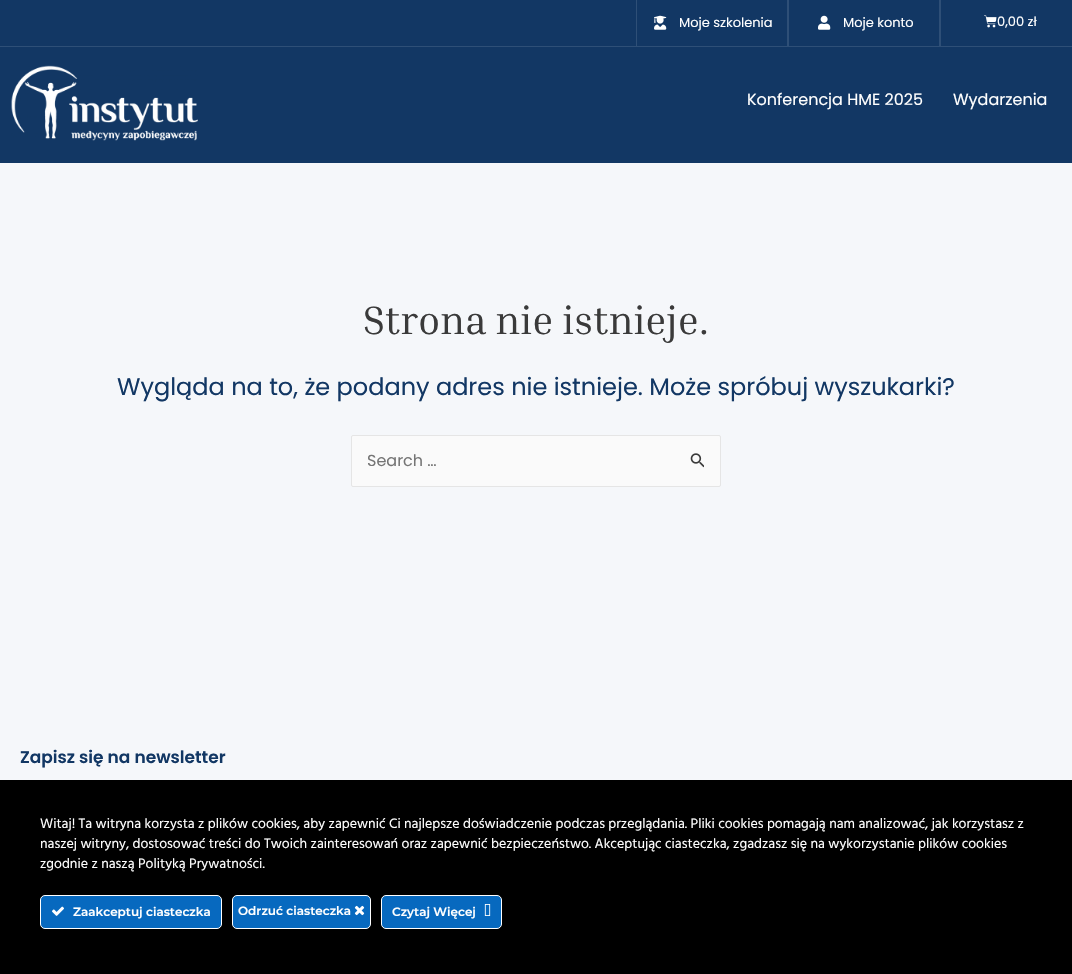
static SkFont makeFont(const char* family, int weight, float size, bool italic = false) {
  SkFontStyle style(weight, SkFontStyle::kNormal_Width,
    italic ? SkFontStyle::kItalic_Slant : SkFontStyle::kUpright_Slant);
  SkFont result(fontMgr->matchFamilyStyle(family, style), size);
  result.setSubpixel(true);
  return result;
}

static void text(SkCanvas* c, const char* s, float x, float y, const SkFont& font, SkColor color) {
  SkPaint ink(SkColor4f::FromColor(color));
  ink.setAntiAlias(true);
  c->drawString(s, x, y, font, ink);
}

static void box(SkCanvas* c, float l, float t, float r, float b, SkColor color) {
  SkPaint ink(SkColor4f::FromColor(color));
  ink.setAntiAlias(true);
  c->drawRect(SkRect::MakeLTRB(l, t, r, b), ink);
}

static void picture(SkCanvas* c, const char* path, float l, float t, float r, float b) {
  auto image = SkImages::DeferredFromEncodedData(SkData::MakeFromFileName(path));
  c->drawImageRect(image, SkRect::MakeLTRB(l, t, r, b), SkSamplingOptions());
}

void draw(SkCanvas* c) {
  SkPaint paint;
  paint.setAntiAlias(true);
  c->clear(0xfff5f7fa);
  box(c, 0, 0, 1072, 46, 0xff123764);
  box(c, 0, 46, 1072, 47, 0xff2e4f77);
  box(c, 787, 0, 789, 46, 0xff2e4f77);
  box(c, 636, 0, 637, 46, 0xff2e4f77);
  picture(c, "img_01.png", 654, 15, 667, 30);
  SkFont face1 = makeFont("Poppins", 400, 13);
  text(c, "Moje szkolenia", 679, 27, face1, 0xffffffff);
  box(c, 939, 0, 941, 46, 0xff2e4f77);
  picture(c, "img_02.png", 818, 15, 831, 30);
  text(c, "Moje konto", 843, 27, face1, 0xffffffff);
  picture(c, "img_03.png", 984, 15, 997, 28);
  text(c, "0,00 zł", 997, 26, face1, 0xffffffff);
  box(c, 0, 47, 1072, 163, 0xff123764);
  picture(c, "img_04.png", 11, 65, 198, 141);
  SkFont face2 = makeFont("Poppins", 400, 16);
  text(c, "Konferencja HME 2025", 747, 105, face2, 0xffffffff);
  text(c, "Wydarzenia", 953, 105, face2, 0xffffffff);
  SkFont face3 = makeFont("Inria Serif", 400, 40);
  text(c, "Strona nie istnieje.", 363, 334, face3, 0xff3a3a3a);
  SkFont face4 = makeFont("Poppins", 400, 24);
  text(c, "Wygląda na to, że podany adres nie istnieje. Może spróbuj wyszukarki?", 117, 395, face4, 0xff123764);
  paint.setColor(0xfffafafa);
  c->drawRoundRect(SkRect::MakeLTRB(351.5f, 435.5f, 720.5f, 486.5f), 1.5f, 1.5f, paint);
  paint.setStyle(SkPaint::kStroke_Style);
  paint.setStrokeWidth(1);
  paint.setColor(0xffe5e5e5);
  c->drawRoundRect(SkRect::MakeLTRB(351.5f, 435.5f, 720.5f, 486.5f), 1.5f, 1.5f, paint);
  text(c, "Search …", 367, 466, face2, 0xff757575);
  picture(c, "img_05.png", 690, 453, 704, 468);
  SkFont face5 = makeFont("Poppins", 600, 17);
  text(c, "Zapisz się na newsletter", 20, 763, face5, 0xff123764);
  box(c, 0, 780, 1072, 974, 0xff000000);
  SkFont face6 = makeFont("Hind", 400, 14);
  text(c, "Witaj! Ta witryna korzysta z plików cookies, aby zapewnić Ci najlepsze doświadczenie podczas przeglądania. Pliki cookies pomagają nam analizować, jak korzystasz z", 40, 828, face6, 0xffffffff);
  text(c, "naszej witryny, dostosować treści do Twoich zainteresowań oraz zapewnić bezpieczeństwo. Akceptując ciasteczka, zgadzasz się na wykorzystanie plików cookies", 40, 848, face6, 0xffffffff);
  text(c, "zgodnie z naszą Polityką Prywatności.", 40, 868, face6, 0xffffffff);
  paint.setStyle(SkPaint::kFill_Style);
  paint.setColor(0xff0769bf);
  c->drawRoundRect(SkRect::MakeLTRB(40.5f, 895.5f, 221.5f, 928.5f), 4.5f, 4.5f, paint);
  paint.setStyle(SkPaint::kStroke_Style);
  paint.setColor(0xffffffff);
  c->drawRoundRect(SkRect::MakeLTRB(40.5f, 895.5f, 221.5f, 928.5f), 4.5f, 4.5f, paint);
  picture(c, "img_06.png", 52, 906, 64, 916);
  SkFont face7 = makeFont("Montserrat", 600, 12);
  text(c, "Zaakceptuj ciasteczka", 73, 916, face7, 0xffffffff);
  paint.setStyle(SkPaint::kFill_Style);
  paint.setColor(0xff0769bf);
  c->drawRoundRect(SkRect::MakeLTRB(232.5f, 895.5f, 370.5f, 928.5f), 4.5f, 4.5f, paint);
  paint.setStyle(SkPaint::kStroke_Style);
  paint.setColor(0xffffffff);
  c->drawRoundRect(SkRect::MakeLTRB(232.5f, 895.5f, 370.5f, 928.5f), 4.5f, 4.5f, paint);
  text(c, "Odrzuć ciasteczka", 238, 915, face7, 0xffffffff);
  picture(c, "img_07.png", 354, 905, 365, 916);
  paint.setStyle(SkPaint::kFill_Style);
  paint.setColor(0xff0769bf);
  c->drawRoundRect(SkRect::MakeLTRB(381.5f, 895.5f, 501.5f, 928.5f), 4.5f, 4.5f, paint);
  paint.setStyle(SkPaint::kStroke_Style);
  paint.setColor(0xffffffff);
  c->drawRoundRect(SkRect::MakeLTRB(381.5f, 895.5f, 501.5f, 928.5f), 4.5f, 4.5f, paint);
  text(c, "Czytaj Więcej", 392, 916, face7, 0xffffffff);
  picture(c, "img_08.png", 484, 904, 491, 916);
}
